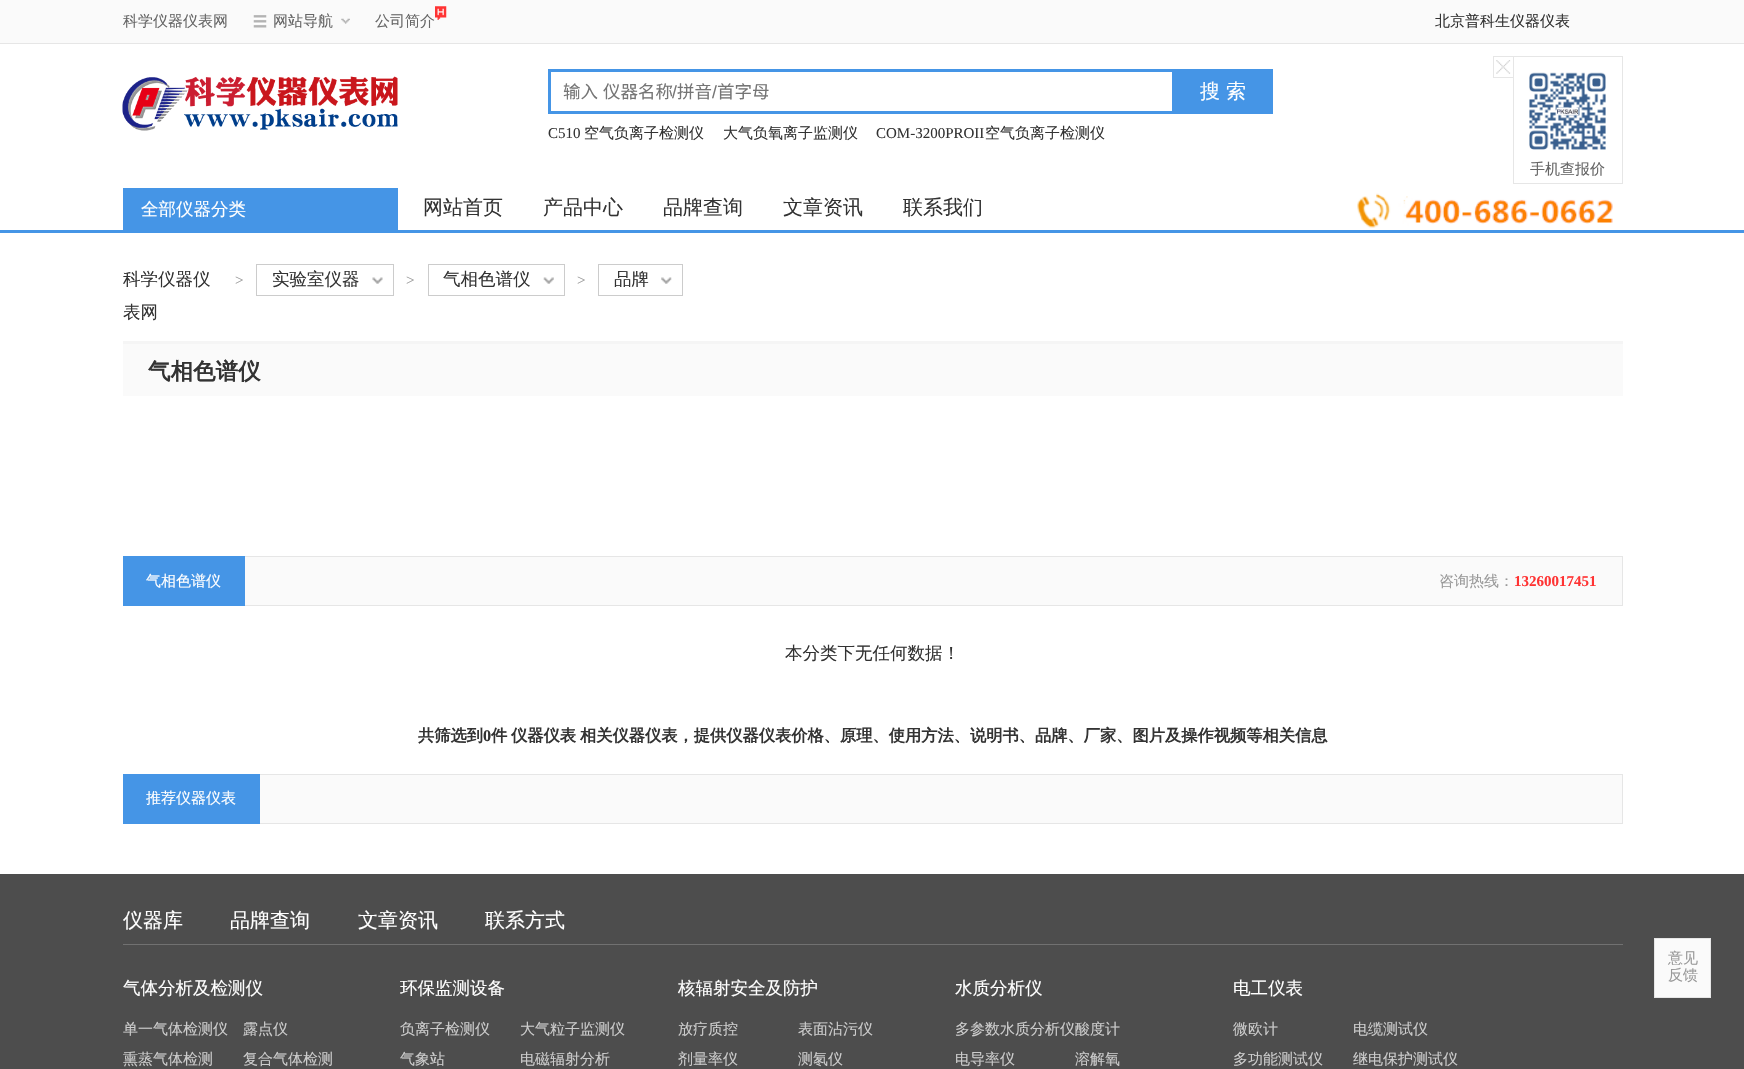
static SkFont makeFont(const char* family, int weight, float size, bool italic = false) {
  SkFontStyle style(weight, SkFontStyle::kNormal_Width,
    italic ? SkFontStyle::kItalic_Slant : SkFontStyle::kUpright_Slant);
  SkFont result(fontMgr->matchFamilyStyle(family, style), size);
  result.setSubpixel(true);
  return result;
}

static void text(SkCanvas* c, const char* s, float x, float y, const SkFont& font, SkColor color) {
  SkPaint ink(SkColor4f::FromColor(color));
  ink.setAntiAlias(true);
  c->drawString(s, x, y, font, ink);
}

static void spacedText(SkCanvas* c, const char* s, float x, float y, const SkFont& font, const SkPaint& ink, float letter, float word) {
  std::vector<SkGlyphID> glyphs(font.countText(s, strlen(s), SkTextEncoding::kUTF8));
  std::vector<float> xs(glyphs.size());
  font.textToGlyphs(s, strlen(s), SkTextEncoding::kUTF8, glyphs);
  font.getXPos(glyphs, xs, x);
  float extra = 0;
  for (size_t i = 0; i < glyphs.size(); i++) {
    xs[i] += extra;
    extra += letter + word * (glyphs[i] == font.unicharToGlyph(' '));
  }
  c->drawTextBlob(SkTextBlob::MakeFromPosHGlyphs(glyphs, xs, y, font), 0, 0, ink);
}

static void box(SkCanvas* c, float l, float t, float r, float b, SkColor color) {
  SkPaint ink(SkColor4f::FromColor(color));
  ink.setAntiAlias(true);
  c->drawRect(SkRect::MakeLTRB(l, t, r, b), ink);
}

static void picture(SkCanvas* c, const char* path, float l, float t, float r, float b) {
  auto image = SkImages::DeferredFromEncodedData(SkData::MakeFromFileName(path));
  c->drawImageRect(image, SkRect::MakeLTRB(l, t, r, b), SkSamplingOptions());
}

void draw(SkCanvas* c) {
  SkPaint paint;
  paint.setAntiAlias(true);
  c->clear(0xffffffff);
  box(c, 0, 0, 1744, 43, 0xfffafafa);
  box(c, 0, 43, 1744, 44, 0xffe6e6e6);
  SkFont face1 = makeFont("WenQuanYi Zen Hei", 500, 15);
  text(c, "科学仪器仪表网", 123, 26, face1, 0xff666666);
  picture(c, "img_01.png", 253, 15, 267, 28);
  text(c, "网站导航", 273, 26, face1, 0xff666666);
  picture(c, "img_02.png", 341, 18, 350, 24);
  text(c, "公司简介", 375, 26, face1, 0xff666666);
  picture(c, "img_03.png", 435, 6, 447, 20);
  text(c, "北京普科生仪器仪表", 1435, 26, face1, 0xff333333);
  picture(c, "img_04.png", 122, 76, 398, 131);
  paint.setStyle(SkPaint::kStroke_Style);
  paint.setStrokeWidth(3);
  paint.setColor(0xff4595e6);
  c->drawRect(SkRect::MakeLTRB(549.5f, 70.5f, 1173.5f, 112.5f), paint);
  SkFont face2 = makeFont("Noto Sans CJK SC", 400, 17.5f);
  paint.setStyle(SkPaint::kFill_Style);
  paint.setColor(0xff757575);
  spacedText(c, "输入 仪器名称", 563, 98, face2, paint, 0, 1);
  SkFont face3 = makeFont("Liberation Sans", 400, 17.5f);
  text(c, "/", 672, 98, face3, 0xff757575);
  text(c, "拼音", 677, 98, face2, 0xff757575);
  text(c, "/", 712, 98, face3, 0xff757575);
  text(c, "首字母", 717, 98, face2, 0xff757575);
  box(c, 1175, 69, 1273, 114, 0xff4595e6);
  SkFont face4 = makeFont("WenQuanYi Zen Hei", 500, 20);
  text(c, "搜 索", 1200, 98, face4, 0xffffffff);
  SkFont face5 = makeFont("Liberation Serif", 400, 15);
  text(c, "C510", 548, 138, face5, 0xff333333);
  text(c, "空气负离子检测仪", 584, 138, face1, 0xff333333);
  text(c, "大气负氧离子监测仪", 723, 138, face1, 0xff333333);
  text(c, "COM-3200PROII", 876, 138, face5, 0xff333333);
  text(c, "空气负离子检测仪", 985, 138, face1, 0xff333333);
  paint.setStyle(SkPaint::kStroke_Style);
  paint.setStrokeWidth(1);
  paint.setColor(0xffe6e6e6);
  c->drawRect(SkRect::MakeLTRB(1513.5f, 56.5f, 1622.5f, 183.5f), paint);
  picture(c, "img_05.png", 1496, 60, 1511, 74);
  c->drawRect(SkRect::MakeLTRB(1493.5f, 56.5f, 1513.5f, 77.5f), paint);
  picture(c, "img_06.png", 1529, 72, 1606, 150);
  text(c, "手机查报价", 1530, 174, face1, 0xff666666);
  box(c, 0, 230, 1744, 233, 0xff4595e6);
  box(c, 123, 188, 398, 230, 0xff4595e6);
  SkFont face6 = makeFont("WenQuanYi Zen Hei", 500, 17.5f);
  text(c, "全部仪器分类", 141, 215, face6, 0xffffffff);
  text(c, "网站首页", 423, 214, face4, 0xff333333);
  text(c, "产品中心", 543, 214, face4, 0xff333333);
  text(c, "品牌查询", 663, 214, face4, 0xff333333);
  text(c, "文章资讯", 783, 214, face4, 0xff333333);
  text(c, "联系我们", 903, 214, face4, 0xff333333);
  picture(c, "img_07.png", 1357, 193, 1613, 228);
  text(c, "科学仪器仪", 123, 285, face6, 0xff333333);
  text(c, "表网", 123, 318, face6, 0xff333333);
  text(c, ">", 235, 285, face5, 0xff999999);
  paint.setColor(0xffcccccc);
  c->drawRect(SkRect::MakeLTRB(256.5f, 264.5f, 393.5f, 295.5f), paint);
  text(c, "实验室仪器", 272, 285, face6, 0xff333333);
  picture(c, "img_08.png", 372, 277, 383, 284);
  text(c, ">", 406, 285, face5, 0xff999999);
  c->drawRect(SkRect::MakeLTRB(428.5f, 264.5f, 564.5f, 295.5f), paint);
  text(c, "气相色谱仪", 443, 285, face6, 0xff333333);
  picture(c, "img_09.png", 543, 277, 554, 284);
  text(c, ">", 577, 285, face5, 0xff999999);
  c->drawRect(SkRect::MakeLTRB(598.5f, 264.5f, 682.5f, 295.5f), paint);
  text(c, "品牌", 614, 285, face6, 0xff333333);
  picture(c, "img_10.png", 661, 277, 672, 284);
  box(c, 123, 344, 1623, 396, 0xfffafafa);
  box(c, 123, 341, 1623, 344, 0xfff5f5f5);
  SkFont face7 = makeFont("WenQuanYi Zen Hei", 700, 22.5f);
  text(c, "气相色谱仪", 148, 379, face7, 0xff333333);
  box(c, 245, 557, 1622, 605, 0xfffafafa);
  paint.setColor(0xffe6e6e6);
  c->drawRect(SkRect::MakeLTRB(123.5f, 556.5f, 1622.5f, 605.5f), paint);
  box(c, 123, 556, 245, 606, 0xff4595e6);
  text(c, "气相色谱仪", 146, 586, face1, 0xffffffff);
  text(c, "咨询热线：", 1439, 586, face1, 0xff999999);
  SkFont face8 = makeFont("Liberation Serif", 700, 15);
  text(c, "13260017451", 1514, 586, face8, 0xffff3333);
  text(c, "本分类下无任何数据！", 785, 659, face6, 0xff333333);
  SkFont face9 = makeFont("WenQuanYi Zen Hei", 700, 16.25f);
  text(c, "共筛选到", 418, 741, face9, 0xff333333);
  SkFont face10 = makeFont("Liberation Serif", 700, 16.25f);
  text(c, "0", 483, 741, face10, 0xff333333);
  paint.setStyle(SkPaint::kFill_Style);
  paint.setColor(0xff333333);
  spacedText(c, "件 仪器仪表 相关仪器仪表，提供仪器仪表价格、原理、使用方法、说明书、品牌、厂家、图片及操作视频等相关信息", 491, 741, face9, paint, 0, -1);
  box(c, 260, 775, 1622, 823, 0xfffafafa);
  paint.setStyle(SkPaint::kStroke_Style);
  paint.setColor(0xffe6e6e6);
  c->drawRect(SkRect::MakeLTRB(123.5f, 774.5f, 1622.5f, 823.5f), paint);
  box(c, 123, 774, 260, 824, 0xff4595e6);
  text(c, "推荐仪器仪表", 146, 803, face1, 0xffffffff);
  box(c, 0, 874, 1744, 1069, 0xff4d4d4d);
  box(c, 123, 944, 1623, 945, 0xff717171);
  text(c, "仪器库", 123, 927, face4, 0xffffffff);
  text(c, "品牌查询", 230, 927, face4, 0xffffffff);
  text(c, "文章资讯", 358, 927, face4, 0xffffffff);
  text(c, "联系方式", 485, 927, face4, 0xffffffff);
  text(c, "气体分析及检测仪", 123, 994, face6, 0xffffffff);
  text(c, "单一气体检测仪", 123, 1034, face1, 0xffcccccc);
  text(c, "露点仪", 243, 1034, face1, 0xffcccccc);
  text(c, "熏蒸气体检测", 123, 1064, face1, 0xffcccccc);
  text(c, "复合气体检测", 243, 1064, face1, 0xffcccccc);
  text(c, "环保监测设备", 400, 994, face6, 0xffffffff);
  text(c, "负离子检测仪", 400, 1034, face1, 0xffcccccc);
  text(c, "大气粒子监测仪", 520, 1034, face1, 0xffcccccc);
  text(c, "气象站", 400, 1064, face1, 0xffcccccc);
  text(c, "电磁辐射分析", 520, 1064, face1, 0xffcccccc);
  text(c, "核辐射安全及防护", 678, 994, face6, 0xffffffff);
  text(c, "放疗质控", 678, 1034, face1, 0xffcccccc);
  text(c, "表面沾污仪", 798, 1034, face1, 0xffcccccc);
  text(c, "剂量率仪", 678, 1064, face1, 0xffcccccc);
  text(c, "测氡仪", 798, 1064, face1, 0xffcccccc);
  text(c, "水质分析仪", 955, 994, face6, 0xffffffff);
  text(c, "多参数水质分析仪酸度计", 955, 1034, face1, 0xffcccccc);
  text(c, "电导率仪", 955, 1064, face1, 0xffcccccc);
  text(c, "溶解氧", 1075, 1064, face1, 0xffcccccc);
  text(c, "电工仪表", 1233, 994, face6, 0xffffffff);
  text(c, "微欧计", 1233, 1034, face1, 0xffcccccc);
  text(c, "电缆测试仪", 1353, 1034, face1, 0xffcccccc);
  text(c, "多功能测试仪", 1233, 1064, face1, 0xffcccccc);
  c->save();
  c->clipRect(SkRect::MakeLTRB(1353, 1045, 1473, 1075));
  text(c, "继电保护测试仪", 1353, 1064, face1, 0xffcccccc);
  c->restore();
  paint.setStyle(SkPaint::kFill_Style);
  paint.setColor(0xfffafafa);
  c->drawRect(SkRect::MakeLTRB(1654.5f, 938.5f, 1710.5f, 997.5f), paint);
  paint.setStyle(SkPaint::kStroke_Style);
  paint.setColor(0xffe6e6e6);
  c->drawRect(SkRect::MakeLTRB(1654.5f, 938.5f, 1710.5f, 997.5f), paint);
  text(c, "意见", 1668, 963, face1, 0xff999999);
  text(c, "反馈", 1668, 980, face1, 0xff999999);
}
